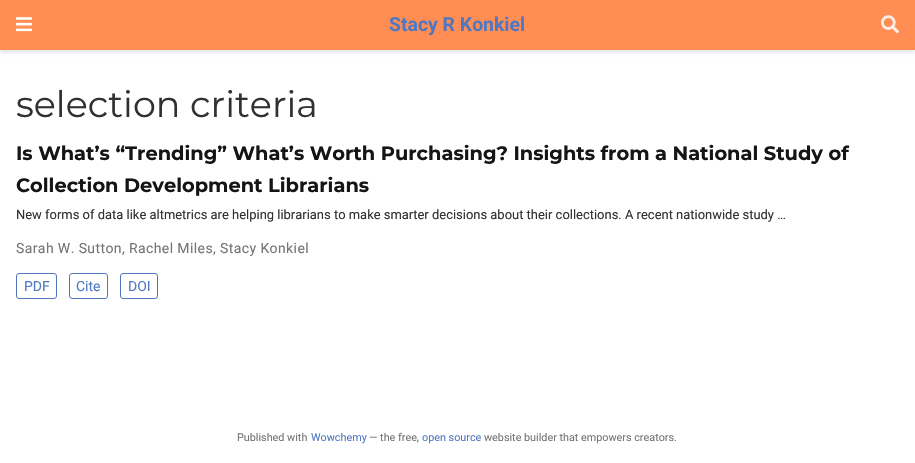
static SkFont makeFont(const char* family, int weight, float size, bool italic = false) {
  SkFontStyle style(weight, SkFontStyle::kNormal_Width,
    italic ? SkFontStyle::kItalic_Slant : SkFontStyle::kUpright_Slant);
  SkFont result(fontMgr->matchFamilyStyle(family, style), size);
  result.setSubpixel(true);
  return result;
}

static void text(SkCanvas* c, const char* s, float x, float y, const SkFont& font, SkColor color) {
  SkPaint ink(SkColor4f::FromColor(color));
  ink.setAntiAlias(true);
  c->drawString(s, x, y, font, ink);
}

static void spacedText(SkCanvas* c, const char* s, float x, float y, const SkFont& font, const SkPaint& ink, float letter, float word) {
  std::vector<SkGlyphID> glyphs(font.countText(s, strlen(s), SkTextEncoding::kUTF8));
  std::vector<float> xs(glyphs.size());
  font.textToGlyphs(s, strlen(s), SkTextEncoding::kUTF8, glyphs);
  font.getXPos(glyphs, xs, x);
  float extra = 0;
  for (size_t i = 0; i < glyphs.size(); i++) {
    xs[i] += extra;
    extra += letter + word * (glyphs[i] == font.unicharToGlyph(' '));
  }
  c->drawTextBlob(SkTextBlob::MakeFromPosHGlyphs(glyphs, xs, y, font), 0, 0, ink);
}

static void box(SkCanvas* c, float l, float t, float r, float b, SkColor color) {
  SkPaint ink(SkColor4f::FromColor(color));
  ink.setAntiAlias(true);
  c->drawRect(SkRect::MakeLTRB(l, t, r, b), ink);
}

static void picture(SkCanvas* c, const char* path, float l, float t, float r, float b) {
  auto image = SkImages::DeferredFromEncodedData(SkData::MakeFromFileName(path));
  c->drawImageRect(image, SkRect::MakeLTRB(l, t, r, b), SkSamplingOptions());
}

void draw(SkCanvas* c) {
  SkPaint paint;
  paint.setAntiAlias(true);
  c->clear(0xffffffff);
  paint.setColor(0x1c000000);
  paint.setMaskFilter(SkMaskFilter::MakeBlur(kNormal_SkBlurStyle, 2));
  c->drawRect(SkRect::MakeLTRB(0, 2, 915, 52), paint);
  paint.setMaskFilter(nullptr);
  box(c, 0, 0, 915, 50, 0xffff8d54);
  picture(c, "img_01.png", 16, 17, 32, 32);
  SkFont face1 = makeFont("Roboto", 700, 19.4f);
  text(c, "Stacy R Konkiel", 389, 31, face1, 0xff5078c0);
  picture(c, "img_02.png", 881, 15, 899, 34);
  SkFont face2 = makeFont("Montserrat", 400, 36.5f);
  text(c, "selection criteria", 16, 117, face2, 0xff313131);
  SkFont face3 = makeFont("Montserrat", 700, 19.4f);
  text(c, "Is What’s “Trending” What’s Worth Purchasing? Insights from a National Study of", 16, 160, face3, 0xff151515);
  text(c, "Collection Development Librarians", 16, 192, face3, 0xff151515);
  SkFont face4 = makeFont("Roboto", 400, 12.95f);
  text(c, "New forms of data like altmetrics are helping librarians to make smarter decisions about their collections. A recent nationwide study …", 16, 219, face4, 0xff313131);
  SkFont face5 = makeFont("Roboto", 400, 14);
  paint.setColor(0xff757575);
  spacedText(c, "Sarah W. Sutton, Rachel Miles, Stacy Konkiel", 16, 253, face5, paint, 0.4f, 0);
  paint.setStyle(SkPaint::kStroke_Style);
  paint.setStrokeWidth(1);
  paint.setColor(0xff5078c0);
  c->drawRoundRect(SkRect::MakeLTRB(16.5f, 273.5f, 56.5f, 298.5f), 2.5f, 2.5f, paint);
  text(c, "PDF", 24, 291, face5, 0xff5078c0);
  c->drawRoundRect(SkRect::MakeLTRB(69.5f, 273.5f, 107.5f, 298.5f), 2.5f, 2.5f, paint);
  text(c, "Cite", 76, 291, face5, 0xff5078c0);
  c->drawRoundRect(SkRect::MakeLTRB(120.5f, 273.5f, 157.5f, 298.5f), 2.5f, 2.5f, paint);
  text(c, "DOI", 128, 291, face5, 0xff5078c0);
  SkFont face6 = makeFont("Roboto", 400, 10.8f);
  text(c, "Published with", 237, 441, face6, 0xff757575);
  text(c, "Wowchemy", 311, 441, face6, 0xff5078c0);
  text(c, "— the free,", 369, 441, face6, 0xff757575);
  text(c, "open source", 422, 441, face6, 0xff5078c0);
  text(c, "website builder that empowers creators.", 484, 441, face6, 0xff757575);
}
